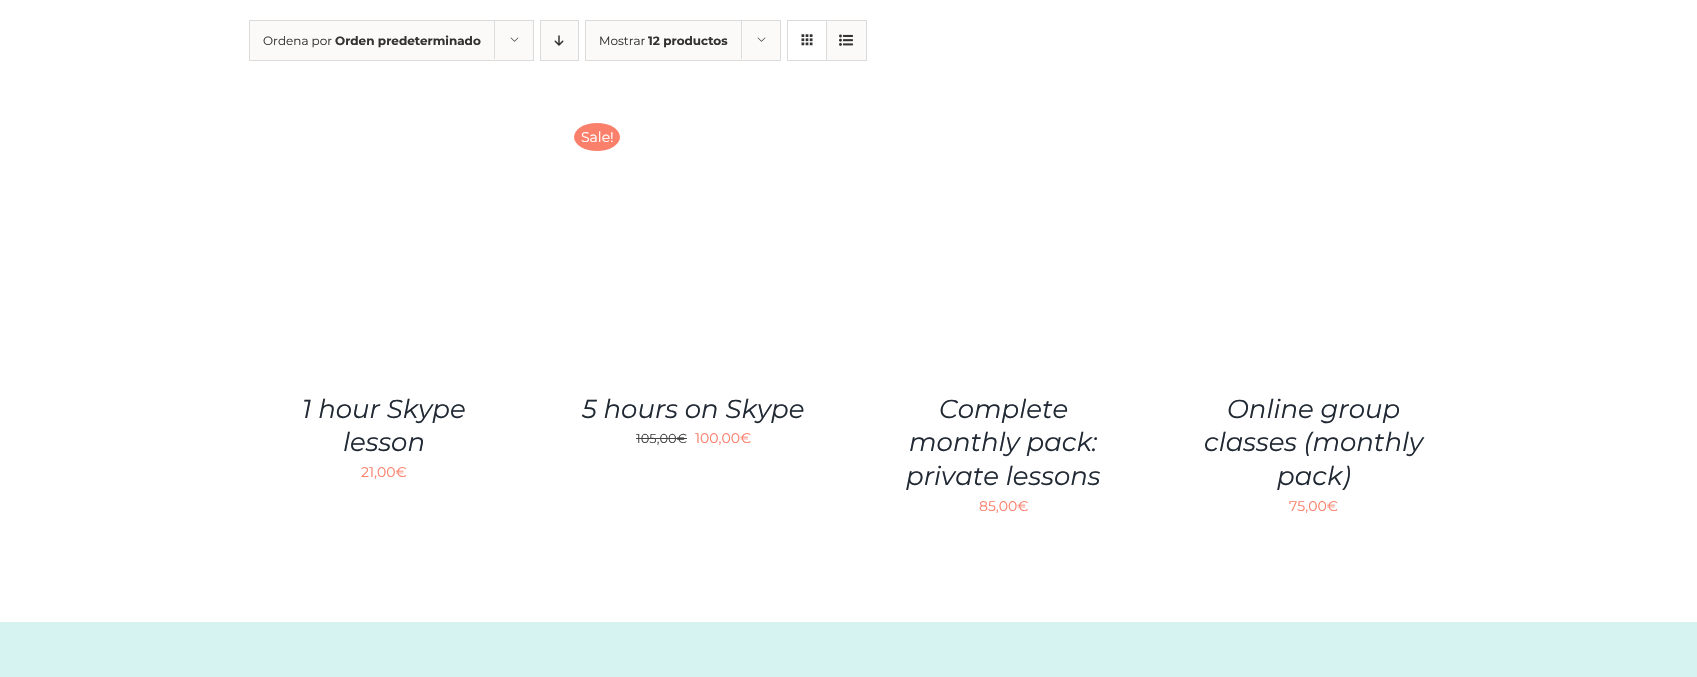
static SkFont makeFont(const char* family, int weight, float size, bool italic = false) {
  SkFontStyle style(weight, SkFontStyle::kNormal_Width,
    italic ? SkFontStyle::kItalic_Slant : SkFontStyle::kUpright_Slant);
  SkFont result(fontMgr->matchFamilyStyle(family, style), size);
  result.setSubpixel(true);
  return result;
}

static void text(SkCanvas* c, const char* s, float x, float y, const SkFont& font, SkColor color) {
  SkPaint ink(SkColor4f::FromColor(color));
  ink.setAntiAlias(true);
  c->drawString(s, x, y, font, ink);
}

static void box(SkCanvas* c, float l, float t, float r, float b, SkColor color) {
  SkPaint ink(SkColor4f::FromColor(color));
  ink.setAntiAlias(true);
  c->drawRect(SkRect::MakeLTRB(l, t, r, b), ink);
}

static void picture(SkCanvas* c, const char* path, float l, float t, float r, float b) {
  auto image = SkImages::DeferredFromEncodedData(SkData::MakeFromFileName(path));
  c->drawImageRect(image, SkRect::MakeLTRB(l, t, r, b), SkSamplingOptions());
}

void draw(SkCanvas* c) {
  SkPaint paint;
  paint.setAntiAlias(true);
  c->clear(0xffffffff);
  paint.setColor(0xfffbfaf9);
  c->drawRect(SkRect::MakeLTRB(249.5f, 20.5f, 533.5f, 60.5f), paint);
  paint.setStyle(SkPaint::kStroke_Style);
  paint.setStrokeWidth(1);
  paint.setColor(0xffdbdbdb);
  c->drawRect(SkRect::MakeLTRB(249.5f, 20.5f, 533.5f, 60.5f), paint);
  SkFont face1 = makeFont("Montserrat", 400, 12);
  text(c, "Ordena por", 263, 45, face1, 0xff333333);
  SkFont face2 = makeFont("Montserrat", 700, 12);
  text(c, "Orden predeterminado", 335, 45, face2, 0xff333333);
  box(c, 494, 20, 495, 59, 0xffdbdbdb);
  picture(c, "img_01.png", 510, 37, 519, 42);
  paint.setStyle(SkPaint::kFill_Style);
  paint.setColor(0xfffbfaf9);
  c->drawRect(SkRect::MakeLTRB(540.5f, 20.5f, 578.5f, 60.5f), paint);
  paint.setStyle(SkPaint::kStroke_Style);
  paint.setColor(0xffdbdbdb);
  c->drawRect(SkRect::MakeLTRB(540.5f, 20.5f, 578.5f, 60.5f), paint);
  picture(c, "img_02.png", 554, 35, 564, 46);
  paint.setStyle(SkPaint::kFill_Style);
  paint.setColor(0xfffbfaf9);
  c->drawRect(SkRect::MakeLTRB(585.5f, 20.5f, 780.5f, 60.5f), paint);
  paint.setStyle(SkPaint::kStroke_Style);
  paint.setColor(0xffdbdbdb);
  c->drawRect(SkRect::MakeLTRB(585.5f, 20.5f, 780.5f, 60.5f), paint);
  text(c, "Mostrar", 599, 45, face1, 0xff333333);
  text(c, "12 productos", 648, 45, face2, 0xff333333);
  box(c, 741, 20, 742, 59, 0xffdbdbdb);
  picture(c, "img_01.png", 757, 37, 766, 42);
  c->drawRect(SkRect::MakeLTRB(787.5f, 20.5f, 866.5f, 60.5f), paint);
  box(c, 826, 21, 827, 60, 0xffdbdbdb);
  picture(c, "img_03.png", 801, 34, 813, 46);
  box(c, 827, 21, 866, 60, 0xfffbfaf9);
  picture(c, "img_04.png", 839, 34, 853, 46);
  SkFont face3 = makeFont("Montserrat", 400, 26, true);
  text(c, "1 hour Skype", 302, 418, face3, 0xff212934);
  text(c, "lesson", 343, 451, face3, 0xff212934);
  SkFont face4 = makeFont("Montserrat", 400, 14);
  text(c, "21,00€", 361, 477, face4, 0xfffb806b);
  paint.setStyle(SkPaint::kFill_Style);
  paint.setColor(0xfffb806b);
  c->drawOval(SkRect::MakeLTRB(574, 123, 620, 151), paint);
  text(c, "Sale!", 581, 142, face4, 0xffffffff);
  text(c, "5 hours on Skype", 582, 418, face3, 0xff212934);
  SkFont face5 = makeFont("Montserrat", 400, 13);
  text(c, "105,00€", 636, 443, face5, 0xff454545);
  box(c, 636, 438, 687, 439, 0xff454545);
  text(c, "100,00€", 695, 443, face4, 0xfffb806b);
  text(c, "Complete", 939, 418, face3, 0xff212934);
  text(c, "monthly pack:", 909, 451, face3, 0xff212934);
  text(c, "private lessons", 906, 485, face3, 0xff212934);
  text(c, "85,00€", 979, 511, face4, 0xfffb806b);
  text(c, "Online group", 1227, 418, face3, 0xff212934);
  text(c, "classes (monthly", 1204, 451, face3, 0xff212934);
  text(c, "pack)", 1277, 485, face3, 0xff212934);
  text(c, "75,00€", 1289, 511, face4, 0xfffb806b);
  box(c, 0, 622, 1697, 677, 0xffd7f3f1);
}
